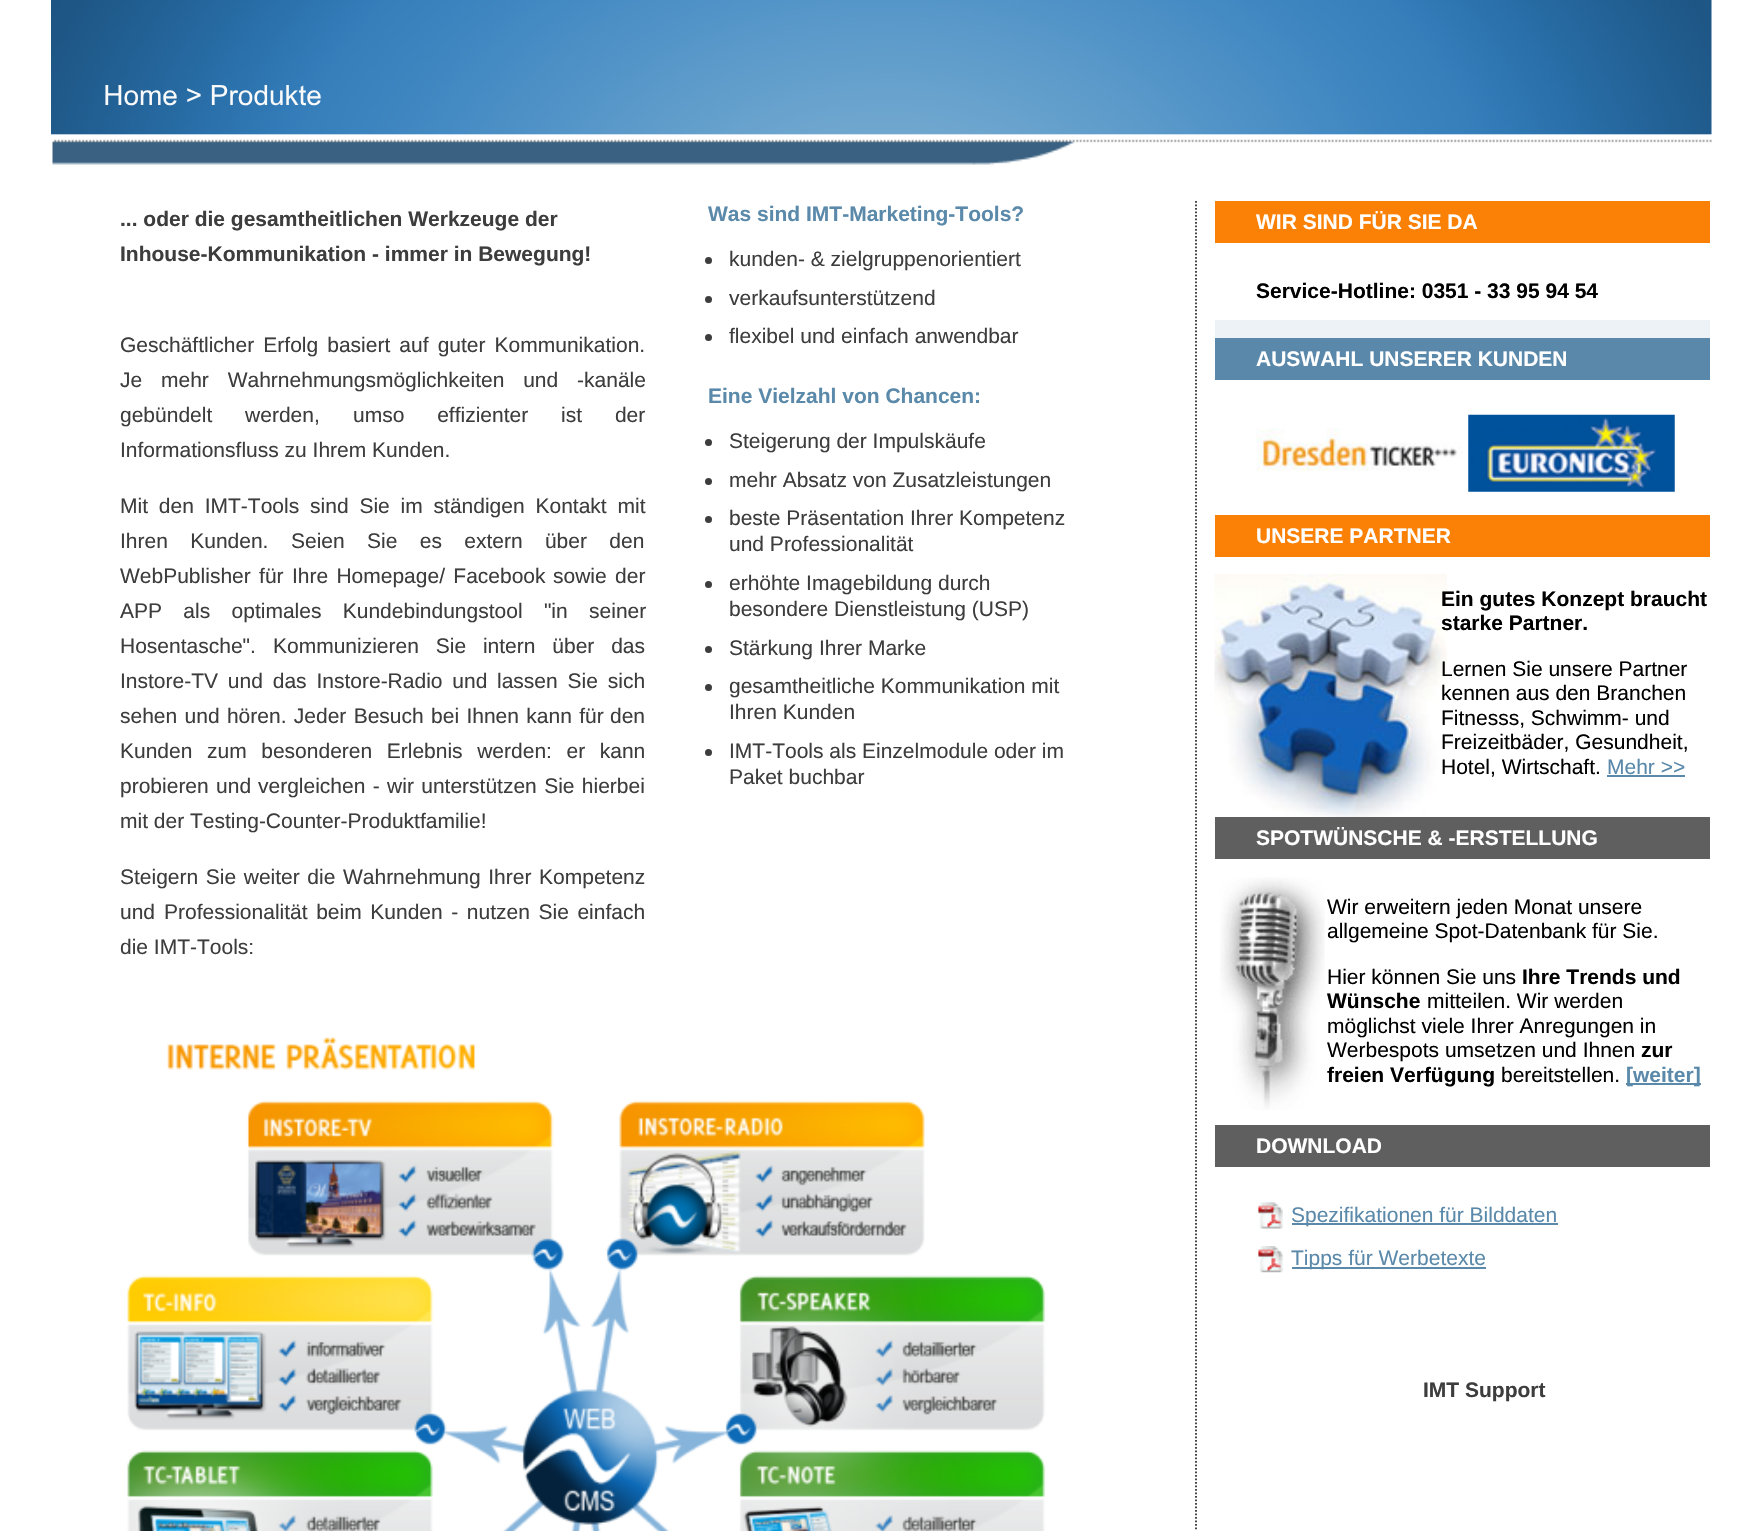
static SkFont makeFont(const char* family, int weight, float size, bool italic = false) {
  SkFontStyle style(weight, SkFontStyle::kNormal_Width,
    italic ? SkFontStyle::kItalic_Slant : SkFontStyle::kUpright_Slant);
  SkFont result(fontMgr->matchFamilyStyle(family, style), size);
  result.setSubpixel(true);
  return result;
}

static void text(SkCanvas* c, const char* s, float x, float y, const SkFont& font, SkColor color) {
  SkPaint ink(SkColor4f::FromColor(color));
  ink.setAntiAlias(true);
  c->drawString(s, x, y, font, ink);
}

static void spacedText(SkCanvas* c, const char* s, float x, float y, const SkFont& font, const SkPaint& ink, float letter, float word) {
  std::vector<SkGlyphID> glyphs(font.countText(s, strlen(s), SkTextEncoding::kUTF8));
  std::vector<float> xs(glyphs.size());
  font.textToGlyphs(s, strlen(s), SkTextEncoding::kUTF8, glyphs);
  font.getXPos(glyphs, xs, x);
  float extra = 0;
  for (size_t i = 0; i < glyphs.size(); i++) {
    xs[i] += extra;
    extra += letter + word * (glyphs[i] == font.unicharToGlyph(' '));
  }
  c->drawTextBlob(SkTextBlob::MakeFromPosHGlyphs(glyphs, xs, y, font), 0, 0, ink);
}

static void box(SkCanvas* c, float l, float t, float r, float b, SkColor color) {
  SkPaint ink(SkColor4f::FromColor(color));
  ink.setAntiAlias(true);
  c->drawRect(SkRect::MakeLTRB(l, t, r, b), ink);
}

static void picture(SkCanvas* c, const char* path, float l, float t, float r, float b) {
  auto image = SkImages::DeferredFromEncodedData(SkData::MakeFromFileName(path));
  c->drawImageRect(image, SkRect::MakeLTRB(l, t, r, b), SkSamplingOptions());
}

void draw(SkCanvas* c) {
  SkPaint paint;
  paint.setAntiAlias(true);
  c->clear(0xffffffff);
  picture(c, "img_01.png", 52, 139, 1712, 165);
  picture(c, "img_02.png", 51, 0, 1712, 135);
  SkFont face1 = makeFont("Liberation Sans", 700, 21);
  text(c, "... oder die gesamtheitlichen Werkzeuge der", 120, 226, face1, 0xff3d3d3d);
  text(c, "Inhouse-Kommunikation - immer in Bewegung!", 120, 261, face1, 0xff3d3d3d);
  SkFont face2 = makeFont("Liberation Sans", 400, 21);
  paint.setColor(0xff3d3d3d);
  spacedText(c, "Geschäftlicher Erfolg basiert auf guter Kommunikation.", 120, 352, face2, paint, 0, 3.25f);
  spacedText(c, "Je mehr Wahrnehmungsmöglichkeiten und -kanäle", 120, 387, face2, paint, 0, 13);
  spacedText(c, "gebündelt werden,", 120, 422, face2, paint, 0, 27);
  spacedText(c, "umso effizienter ist der", 353, 422, face2, paint, 0, 27);
  text(c, "Informationsfluss zu Ihrem Kunden.", 120, 457, face2, 0xff3d3d3d);
  spacedText(c, "Mit den IMT-Tools sind Sie im ständigen Kontakt mit", 120, 513, face2, paint, 0, 5);
  spacedText(c, "Ihren Kunden.", 120, 548, face2, paint, 0, 16.5f);
  spacedText(c, "Seien Sie es extern über den", 291, 548, face2, paint, 0, 16.5f);
  spacedText(c, "WebPublisher für Ihre Homepage/ Facebook", 120, 583, face2, paint, 0, 2.5f);
  spacedText(c, "sowie der", 553, 583, face2, paint, 0, 2.5f);
  spacedText(c, "APP als optimales Kundebindungstool \"in seiner", 120, 618, face2, paint, 0, 15.5f);
  text(c, "Hosentasche\".", 120, 653, face2, 0xff3d3d3d);
  spacedText(c, "Kommunizieren Sie intern über das", 273, 653, face2, paint, 0, 11);
  spacedText(c, "Instore-TV und das Instore-Radio und", 120, 688, face2, paint, 0, 4);
  spacedText(c, "lassen Sie sich", 497, 688, face2, paint, 0, 4);
  spacedText(c, "sehen und hören. Jeder Besuch bei Ihnen kann für", 120, 723, face2, paint, 0, 1.5f);
  text(c, "den", 610, 723, face2, 0xff3d3d3d);
  spacedText(c, "Kunden zum besonderen Erlebnis werden: er kann", 120, 758, face2, paint, 0, 8.75f);
  spacedText(c, "probieren und", 120, 793, face2, paint, 0, 1.5f);
  spacedText(c, "vergleichen - wir unterstützen Sie hierbei", 258, 793, face2, paint, 0, 1.5f);
  text(c, "mit der Testing-Counter-Produktfamilie!", 120, 828, face2, 0xff3d3d3d);
  spacedText(c, "Steigern Sie weiter die Wahrnehmung Ihrer Kompetenz", 120, 884, face2, paint, 0, 1.75f);
  text(c, "und", 120, 919, face2, 0xff3d3d3d);
  spacedText(c, "Professionalität beim Kunden - nutzen Sie einfach", 164, 919, face2, paint, 0, 2.75f);
  text(c, "die IMT-Tools:", 120, 954, face2, 0xff3d3d3d);
  picture(c, "img_03.png", 127, 1037, 1046, 1531);
  text(c, "Was sind IMT-Marketing-Tools?", 708, 221, face1, 0xff5a89aa);
  c->drawCircle(708.5f, 260.5f, 3.5f, paint);
  text(c, "kunden- & zielgruppenorientiert", 729, 266, face2, 0xff3d3d3d);
  c->drawCircle(708.5f, 299.5f, 3.5f, paint);
  text(c, "verkaufsunterstützend", 729, 305, face2, 0xff3d3d3d);
  c->drawCircle(708.5f, 337.5f, 3.5f, paint);
  text(c, "flexibel und einfach anwendbar", 729, 343, face2, 0xff3d3d3d);
  text(c, "Eine Vielzahl von Chancen:", 708, 403, face1, 0xff5a89aa);
  c->drawCircle(708.5f, 442.5f, 3.5f, paint);
  text(c, "Steigerung der Impulskäufe", 729, 448, face2, 0xff3d3d3d);
  c->drawCircle(708.5f, 481.5f, 3.5f, paint);
  text(c, "mehr Absatz von Zusatzleistungen", 729, 487, face2, 0xff3d3d3d);
  c->drawCircle(708.5f, 519.5f, 3.5f, paint);
  text(c, "beste Präsentation Ihrer Kompetenz", 729, 525, face2, 0xff3d3d3d);
  text(c, "und Professionalität", 729, 551, face2, 0xff3d3d3d);
  c->drawCircle(708.5f, 584.5f, 3.5f, paint);
  text(c, "erhöhte Imagebildung durch", 729, 590, face2, 0xff3d3d3d);
  text(c, "besondere Dienstleistung (USP)", 729, 616, face2, 0xff3d3d3d);
  c->drawCircle(708.5f, 649.5f, 3.5f, paint);
  text(c, "Stärkung Ihrer Marke", 729, 655, face2, 0xff3d3d3d);
  c->drawCircle(708.5f, 687.5f, 3.5f, paint);
  text(c, "gesamtheitliche Kommunikation mit", 729, 693, face2, 0xff3d3d3d);
  text(c, "Ihren Kunden", 729, 719, face2, 0xff3d3d3d);
  c->drawCircle(708.5f, 752.5f, 3.5f, paint);
  text(c, "IMT-Tools als Einzelmodule oder im", 729, 758, face2, 0xff3d3d3d);
  text(c, "Paket buchbar", 729, 784, face2, 0xff3d3d3d);
  paint.setStyle(SkPaint::kStroke_Style);
  paint.setStrokeWidth(1.8f);
  paint.setColor(0xff333333);
  paint.setPathEffect(SkDashPathEffect::Make({{1.75f, 1.75f}}, 0));
  c->drawPath(SkPathBuilder().moveTo(1196, 201).lineTo(1196, 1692).detach(), paint);
  paint.setPathEffect(nullptr);
  box(c, 1215, 201, 1710, 243, 0xfffa8106);
  text(c, "WIR SIND FÜR SIE DA", 1256, 229, face1, 0xffffffff);
  text(c, "Service-Hotline: 0351 - 33 95 94 54", 1256, 298, face1, 0xff000000);
  box(c, 1215, 320, 1710, 338, 0xffedf2f7);
  box(c, 1215, 338, 1710, 380, 0xff5988aa);
  text(c, "AUSWAHL UNSERER KUNDEN", 1256, 366, face1, 0xffffffff);
  picture(c, "img_04.png", 1256, 428, 1463, 471);
  picture(c, "img_05.png", 1468, 414, 1675, 492);
  box(c, 1215, 515, 1710, 557, 0xfffa8106);
  text(c, "UNSERE PARTNER", 1256, 543, face1, 0xffffffff);
  picture(c, "img_06.png", 1214, 574, 1447, 817);
  text(c, "Ein gutes Konzept braucht", 1441, 606, face1, 0xff000000);
  text(c, "starke Partner.", 1441, 630, face1, 0xff000000);
  text(c, "Lernen Sie unsere Partner", 1441, 676, face2, 0xff000000);
  text(c, "kennen aus den Branchen", 1441, 700, face2, 0xff000000);
  text(c, "Fitnesss, Schwimm- und", 1441, 725, face2, 0xff000000);
  text(c, "Freizeitbäder, Gesundheit,", 1441, 749, face2, 0xff000000);
  text(c, "Hotel, Wirtschaft.", 1441, 774, face2, 0xff000000);
  text(c, "Mehr >>", 1607, 774, face2, 0xff5a89aa);
  box(c, 1607, 775, 1685, 777, 0xff5a89aa);
  box(c, 1215, 817, 1710, 859, 0xff5f5f5f);
  text(c, "SPOTWÜNSCHE & -ERSTELLUNG", 1256, 845, face1, 0xffffffff);
  picture(c, "img_07.png", 1220, 877, 1325, 1110);
  text(c, "Wir erweitern jeden Monat unsere", 1327, 914, face2, 0xff000000);
  text(c, "allgemeine Spot-Datenbank für Sie.", 1327, 938, face2, 0xff000000);
  text(c, "Hier können Sie uns", 1327, 984, face2, 0xff000000);
  text(c, "Ihre Trends und", 1522, 984, face1, 0xff000000);
  text(c, "Wünsche", 1327, 1008, face1, 0xff000000);
  text(c, "mitteilen. Wir werden", 1427, 1008, face2, 0xff000000);
  text(c, "möglichst viele Ihrer Anregungen in", 1327, 1033, face2, 0xff000000);
  text(c, "Werbespots umsetzen und Ihnen", 1327, 1057, face2, 0xff000000);
  text(c, "zur", 1641, 1057, face1, 0xff000000);
  text(c, "freien Verfügung", 1327, 1082, face1, 0xff000000);
  text(c, "bereitstellen.", 1501, 1082, face2, 0xff000000);
  box(c, 1626, 1083, 1701, 1085, 0xff5a89aa);
  text(c, "[weiter]", 1626, 1082, face1, 0xff5a89aa);
  box(c, 1215, 1125, 1710, 1167, 0xff5f5f5f);
  text(c, "DOWNLOAD", 1256, 1153, face1, 0xffffffff);
  picture(c, "img_08.png", 1257, 1202, 1283, 1229);
  box(c, 1292, 1223, 1558, 1225, 0xff5a89aa);
  text(c, "Spezifikationen für Bilddaten", 1291, 1222, face2, 0xff5a89aa);
  picture(c, "img_09.png", 1257, 1246, 1283, 1273);
  box(c, 1292, 1267, 1486, 1269, 0xff5a89aa);
  text(c, "Tipps für Werbetexte", 1291, 1265, face2, 0xff5a89aa);
  text(c, "IMT Support", 1423, 1397, face1, 0xff3d3d3d);
}
